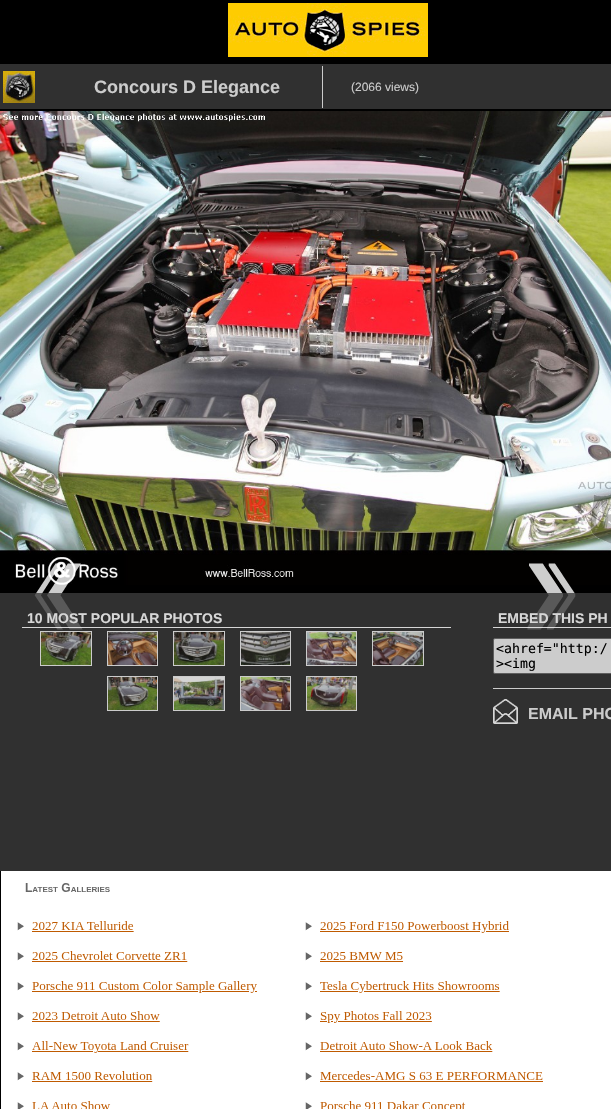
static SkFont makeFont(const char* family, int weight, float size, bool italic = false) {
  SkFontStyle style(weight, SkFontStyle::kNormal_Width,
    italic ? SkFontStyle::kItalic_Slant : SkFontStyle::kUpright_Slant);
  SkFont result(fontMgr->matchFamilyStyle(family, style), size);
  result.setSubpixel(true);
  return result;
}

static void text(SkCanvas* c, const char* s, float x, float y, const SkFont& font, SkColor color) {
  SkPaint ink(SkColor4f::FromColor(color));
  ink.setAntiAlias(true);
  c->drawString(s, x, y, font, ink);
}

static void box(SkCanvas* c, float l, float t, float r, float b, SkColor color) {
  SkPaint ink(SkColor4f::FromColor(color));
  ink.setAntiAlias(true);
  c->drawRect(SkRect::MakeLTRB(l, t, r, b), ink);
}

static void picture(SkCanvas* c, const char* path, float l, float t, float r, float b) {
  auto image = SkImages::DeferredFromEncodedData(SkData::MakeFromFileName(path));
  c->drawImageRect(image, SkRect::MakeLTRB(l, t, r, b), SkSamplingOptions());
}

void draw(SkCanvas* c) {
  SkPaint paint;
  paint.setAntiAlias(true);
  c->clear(0xff000000);
  picture(c, "img_01.png", 228, 3, 428, 57);
  box(c, 0, 64, 611, 109, 0xff303030);
  picture(c, "img_02.png", 3, 71, 35, 103);
  box(c, 322, 66, 323, 108, 0xffcccccc);
  SkFont face1 = makeFont("Liberation Sans", 700, 18);
  text(c, "Concours D Elegance", 94, 93, face1, 0xffcccccc);
  SkFont face2 = makeFont("Liberation Sans", 400, 12);
  text(c, "(2066 views)", 351, 91, face2, 0xffcccccc);
  picture(c, "img_03.png", 0, 111, 611, 585);
  picture(c, "img_04.png", 34, 563, 83, 630);
  picture(c, "img_05.png", 527, 563, 576, 630);
  box(c, 0, 593, 611, 863, 0xcc3c3c3c);
  box(c, 22, 627, 451, 628, 0xccffffff);
  SkFont face3 = makeFont("Liberation Sans", 700, 14);
  text(c, "10 MOST POPULAR PHOTOS", 27, 623, face3, 0xffd7d7d7);
  paint.setStyle(SkPaint::kStroke_Style);
  paint.setStrokeWidth(1);
  paint.setColor(0xffcccccc);
  c->drawRect(SkRect::MakeLTRB(40.5f, 631.5f, 91.5f, 665.5f), paint);
  c->drawRect(SkRect::MakeLTRB(107.5f, 631.5f, 157.5f, 665.5f), paint);
  c->drawRect(SkRect::MakeLTRB(173.5f, 631.5f, 224.5f, 665.5f), paint);
  c->drawRect(SkRect::MakeLTRB(240.5f, 631.5f, 290.5f, 665.5f), paint);
  c->drawRect(SkRect::MakeLTRB(306.5f, 631.5f, 356.5f, 665.5f), paint);
  c->drawRect(SkRect::MakeLTRB(372.5f, 631.5f, 423.5f, 665.5f), paint);
  picture(c, "img_06.png", 41, 632, 91, 665);
  picture(c, "img_07.png", 108, 632, 157, 665);
  picture(c, "img_08.png", 174, 632, 224, 665);
  picture(c, "img_09.png", 241, 632, 290, 665);
  picture(c, "img_10.png", 307, 632, 356, 665);
  picture(c, "img_11.png", 373, 632, 423, 665);
  c->drawRect(SkRect::MakeLTRB(107.5f, 676.5f, 157.5f, 710.5f), paint);
  c->drawRect(SkRect::MakeLTRB(173.5f, 676.5f, 224.5f, 710.5f), paint);
  c->drawRect(SkRect::MakeLTRB(240.5f, 676.5f, 290.5f, 710.5f), paint);
  c->drawRect(SkRect::MakeLTRB(306.5f, 676.5f, 356.5f, 710.5f), paint);
  picture(c, "img_12.png", 108, 677, 157, 710);
  picture(c, "img_13.png", 174, 677, 224, 710);
  picture(c, "img_14.png", 241, 677, 290, 710);
  picture(c, "img_15.png", 307, 677, 356, 710);
  box(c, 493, 627, 611, 628, 0xccffffff);
  text(c, "EMBED THIS PH", 498, 623, face3, 0xffd7d7d7);
  paint.setStyle(SkPaint::kFill_Style);
  c->drawRoundRect(SkRect::MakeLTRB(493.5f, 638.5f, 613.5f, 673.5f), 1.5f, 1.5f, paint);
  paint.setStyle(SkPaint::kStroke_Style);
  paint.setColor(0xff5e5e5e);
  c->drawRoundRect(SkRect::MakeLTRB(493.5f, 638.5f, 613.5f, 673.5f), 1.5f, 1.5f, paint);
  SkFont face4 = makeFont("DejaVu Sans Mono", 400, 13.25f);
  text(c, "<ahref=\"http:/", 496, 653, face4, 0xff000000);
  text(c, "><img", 496, 668, face4, 0xff000000);
  box(c, 493, 688, 611, 689, 0xffcccccc);
  picture(c, "img_16.png", 493, 699, 518, 724);
  SkFont face5 = makeFont("Liberation Sans", 700, 16);
  text(c, "EMAIL PHO", 528, 719, face5, 0xffcccccc);
  picture(c, "img_17.png", 0, 863, 611, 1109);
}
